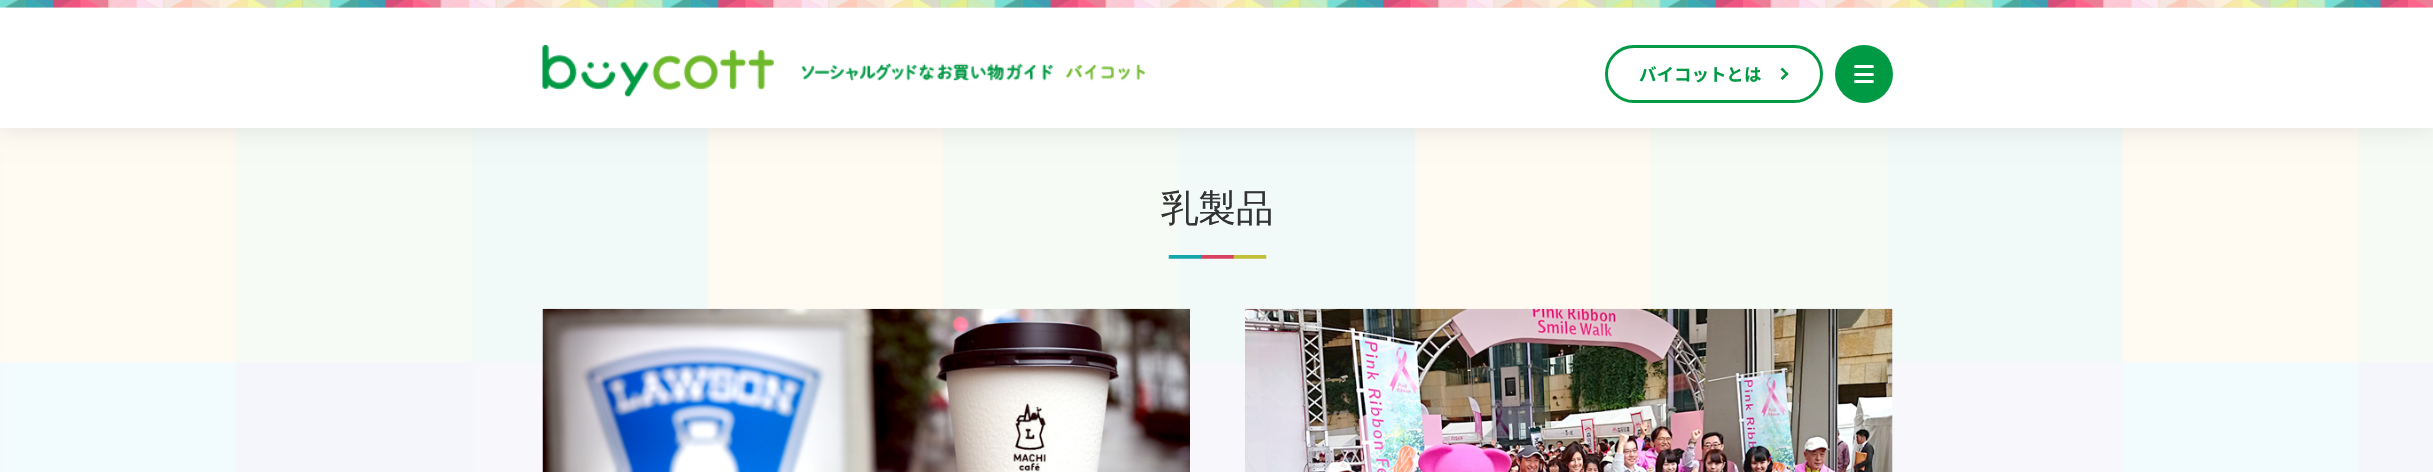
static SkFont makeFont(const char* family, int weight, float size, bool italic = false) {
  SkFontStyle style(weight, SkFontStyle::kNormal_Width,
    italic ? SkFontStyle::kItalic_Slant : SkFontStyle::kUpright_Slant);
  SkFont result(fontMgr->matchFamilyStyle(family, style), size);
  result.setSubpixel(true);
  return result;
}

static void text(SkCanvas* c, const char* s, float x, float y, const SkFont& font, SkColor color) {
  SkPaint ink(SkColor4f::FromColor(color));
  ink.setAntiAlias(true);
  c->drawString(s, x, y, font, ink);
}

static void box(SkCanvas* c, float l, float t, float r, float b, SkColor color) {
  SkPaint ink(SkColor4f::FromColor(color));
  ink.setAntiAlias(true);
  c->drawRect(SkRect::MakeLTRB(l, t, r, b), ink);
}

static void roundBox(SkCanvas* c, float l, float t, float r, float b, float radius, SkColor color) {
  SkPaint ink(SkColor4f::FromColor(color));
  ink.setAntiAlias(true);
  c->drawRoundRect(SkRect::MakeLTRB(l, t, r, b), radius, radius, ink);
}

static void picture(SkCanvas* c, const char* path, float l, float t, float r, float b) {
  auto image = SkImages::DeferredFromEncodedData(SkData::MakeFromFileName(path));
  c->drawImageRect(image, SkRect::MakeLTRB(l, t, r, b), SkSamplingOptions());
}

void draw(SkCanvas* c) {
  SkPaint paint;
  paint.setAntiAlias(true);
  c->clear(0xffffffff);
  picture(c, "img_03.png", 0, 128, 2433, 472);
  paint.setColor(0x1a000000);
  paint.setMaskFilter(SkMaskFilter::MakeBlur(kNormal_SkBlurStyle, 12.5f));
  c->drawRect(SkRect::MakeLTRB(0, 0, 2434, 128), paint);
  paint.setMaskFilter(nullptr);
  picture(c, "img_01.png", 0, 0, 2433, 8);
  box(c, 0, 8, 2433, 128, 0xffffffff);
  picture(c, "img_02.png", 542, 45, 1145, 97);
  paint.setStyle(SkPaint::kStroke_Style);
  paint.setStrokeWidth(3);
  paint.setColor(0xff009944);
  c->drawRoundRect(SkRect::MakeLTRB(1606.5f, 46.5f, 1821.5f, 101.5f), 27.5f, 27.5f, paint);
  SkFont face1 = makeFont("Noto Sans JP", 700, 17.5f);
  text(c, "バイコットとは", 1639, 81, face1, 0xff009944);
  paint.setStyle(SkPaint::kFill_Style);
  c->drawPath(SkPathBuilder().moveTo(1782.5f, 67.5f).lineTo(1788.5f, 74).lineTo(1787, 75.5f).lineTo(1780.5f, 69.5f).close().detach(), paint);
  c->drawPath(SkPathBuilder().moveTo(1787, 72).lineTo(1788.5f, 74).lineTo(1782.5f, 80).lineTo(1780.5f, 78).close().detach(), paint);
  c->drawCircle(1864, 74, 29, paint);
  roundBox(c, 1854, 65, 1874, 68, 1.5f, 0xffffffff);
  roundBox(c, 1854, 73, 1874, 76, 1.5f, 0xffffffff);
  roundBox(c, 1854, 80, 1874, 83, 1.5f, 0xffffffff);
  picture(c, "img_04.png", 1168, 255, 1267, 259);
  SkFont face2 = makeFont("WenQuanYi Zen Hei", 500, 37.5f);
  text(c, "乳製品", 1161, 221, face2, 0xff333333);
  picture(c, "img_05.png", 542, 308, 1190, 472);
  picture(c, "img_06.png", 1245, 308, 1893, 472);
}
